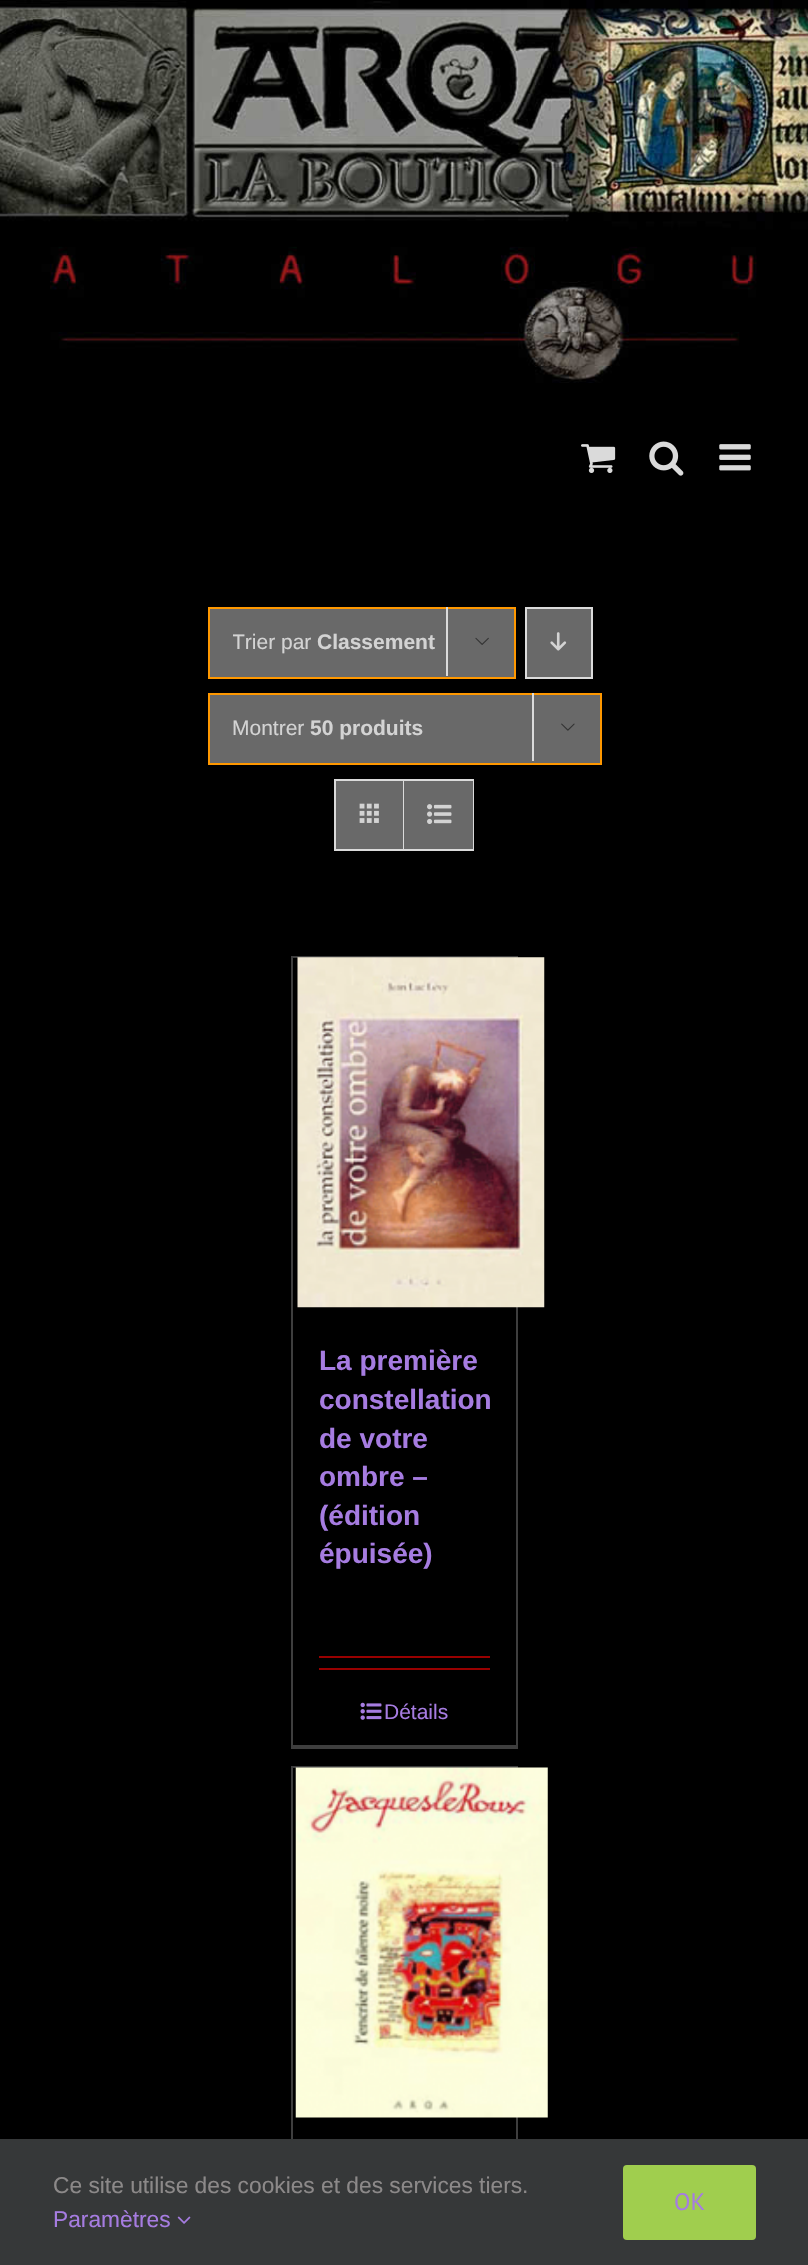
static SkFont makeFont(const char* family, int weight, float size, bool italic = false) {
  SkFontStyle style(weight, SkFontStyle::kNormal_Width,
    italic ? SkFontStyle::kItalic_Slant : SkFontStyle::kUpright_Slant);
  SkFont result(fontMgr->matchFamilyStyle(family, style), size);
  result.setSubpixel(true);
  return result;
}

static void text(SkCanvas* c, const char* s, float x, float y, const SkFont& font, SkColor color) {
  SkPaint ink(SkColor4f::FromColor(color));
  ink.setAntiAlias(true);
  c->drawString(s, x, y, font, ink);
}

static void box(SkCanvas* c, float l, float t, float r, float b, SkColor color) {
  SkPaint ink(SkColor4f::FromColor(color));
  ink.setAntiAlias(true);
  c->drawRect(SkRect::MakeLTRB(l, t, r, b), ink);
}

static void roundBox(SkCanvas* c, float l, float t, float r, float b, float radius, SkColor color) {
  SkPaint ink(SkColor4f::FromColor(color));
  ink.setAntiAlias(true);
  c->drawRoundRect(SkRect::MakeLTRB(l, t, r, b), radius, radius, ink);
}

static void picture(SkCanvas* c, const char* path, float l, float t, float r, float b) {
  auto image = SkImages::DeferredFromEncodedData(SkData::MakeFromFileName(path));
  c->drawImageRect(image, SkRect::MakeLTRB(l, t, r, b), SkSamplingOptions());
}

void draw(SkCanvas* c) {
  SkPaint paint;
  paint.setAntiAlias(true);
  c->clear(0xff000000);
  picture(c, "img_01.png", 0, 0, 808, 383);
  picture(c, "img_02.png", 581, 444, 616, 473);
  picture(c, "img_03.png", 649, 441, 684, 476);
  picture(c, "img_04.png", 719, 444, 751, 471);
  paint.setColor(0xff696969);
  c->drawRect(SkRect::MakeLTRB(209, 608, 515, 678), paint);
  paint.setStyle(SkPaint::kStroke_Style);
  paint.setStrokeWidth(2);
  paint.setColor(0xffff9800);
  c->drawRect(SkRect::MakeLTRB(209, 608, 515, 678), paint);
  c->save();
  c->clipRect(SkRect::MakeLTRB(233, 609, 466, 677));
  SkFont face1 = makeFont("Liberation Sans", 400, 21);
  text(c, "Trier par", 232, 649, face1, 0xffd3d3d3);
  c->restore();
  SkFont face2 = makeFont("Liberation Sans", 700, 21);
  text(c, "Classement", 317, 649, face2, 0xffd3d3d3);
  box(c, 446, 607, 448, 676, 0xffdbdbdb);
  picture(c, "img_05.png", 475, 637, 489, 645);
  paint.setStyle(SkPaint::kFill_Style);
  paint.setColor(0xff696969);
  c->drawRect(SkRect::MakeLTRB(526, 608, 592, 678), paint);
  paint.setStyle(SkPaint::kStroke_Style);
  paint.setColor(0xffdbdbdb);
  c->drawRect(SkRect::MakeLTRB(526, 608, 592, 678), paint);
  picture(c, "img_06.png", 550, 632, 567, 651);
  paint.setStyle(SkPaint::kFill_Style);
  paint.setColor(0xff696969);
  c->drawRect(SkRect::MakeLTRB(209, 694, 601, 764), paint);
  paint.setStyle(SkPaint::kStroke_Style);
  paint.setColor(0xffff9800);
  c->drawRect(SkRect::MakeLTRB(209, 694, 601, 764), paint);
  text(c, "Montrer", 232, 735, face1, 0xffd3d3d3);
  text(c, "50 produits", 310, 735, face2, 0xffd3d3d3);
  box(c, 532, 693, 534, 761, 0xffdbdbdb);
  picture(c, "img_07.png", 561, 723, 575, 731);
  paint.setColor(0xffdbdbdb);
  c->drawRect(SkRect::MakeLTRB(335, 780, 473, 850), paint);
  box(c, 336, 781, 403, 849, 0xff696969);
  box(c, 403, 781, 404, 849, 0xffdbdbdb);
  picture(c, "img_08.png", 359, 803, 379, 823);
  box(c, 404, 781, 473, 849, 0xff696969);
  picture(c, "img_09.png", 427, 804, 452, 824);
  box(c, 291, 956, 518, 958, 0xff3e3e3e);
  box(c, 516, 956, 518, 1748, 0xff3e3e3e);
  box(c, 291, 1745, 518, 1749, 0xff3e3e3e);
  box(c, 291, 956, 293, 1748, 0xff3e3e3e);
  picture(c, "img_10.png", 297, 957, 545, 1308);
  SkFont face3 = makeFont("Liberation Sans", 700, 28);
  text(c, "La première", 319, 1370, face3, 0xffa67ce1);
  text(c, "constellation", 319, 1409, face3, 0xffa67ce1);
  text(c, "de votre", 319, 1448, face3, 0xffa67ce1);
  text(c, "ombre –", 319, 1486, face3, 0xffa67ce1);
  text(c, "(édition", 319, 1525, face3, 0xffa67ce1);
  text(c, "épuisée)", 319, 1563, face3, 0xffa67ce1);
  box(c, 319, 1656, 490, 1658, 0xff990000);
  box(c, 319, 1668, 490, 1670, 0xff990000);
  picture(c, "img_11.png", 360, 1702, 382, 1720);
  text(c, "Détails", 384, 1719, face1, 0xffa67ce1);
  box(c, 291, 1766, 518, 1768, 0xff3e3e3e);
  box(c, 516, 1766, 518, 2139, 0xff3e3e3e);
  box(c, 291, 1766, 293, 2139, 0xff3e3e3e);
  picture(c, "img_12.png", 295, 1767, 548, 2118);
  box(c, 0, 2139, 808, 2265, 0xff363839);
  SkFont face4 = makeFont("Liberation Sans", 400, 22.75f);
  text(c, "Ce site utilise des cookies et des services tiers.", 53, 2193, face4, 0xff8c8989);
  text(c, "Paramètres", 53, 2227, face4, 0xffa67ce1);
  picture(c, "img_13.png", 177, 2216, 191, 2224);
  roundBox(c, 623, 2165, 756, 2240, 4, 0xffa0ce4e);
  SkFont face5 = makeFont("PT Sans", 400, 24);
  text(c, "OK", 674, 2210, face5, 0xffa67ce1);
}
